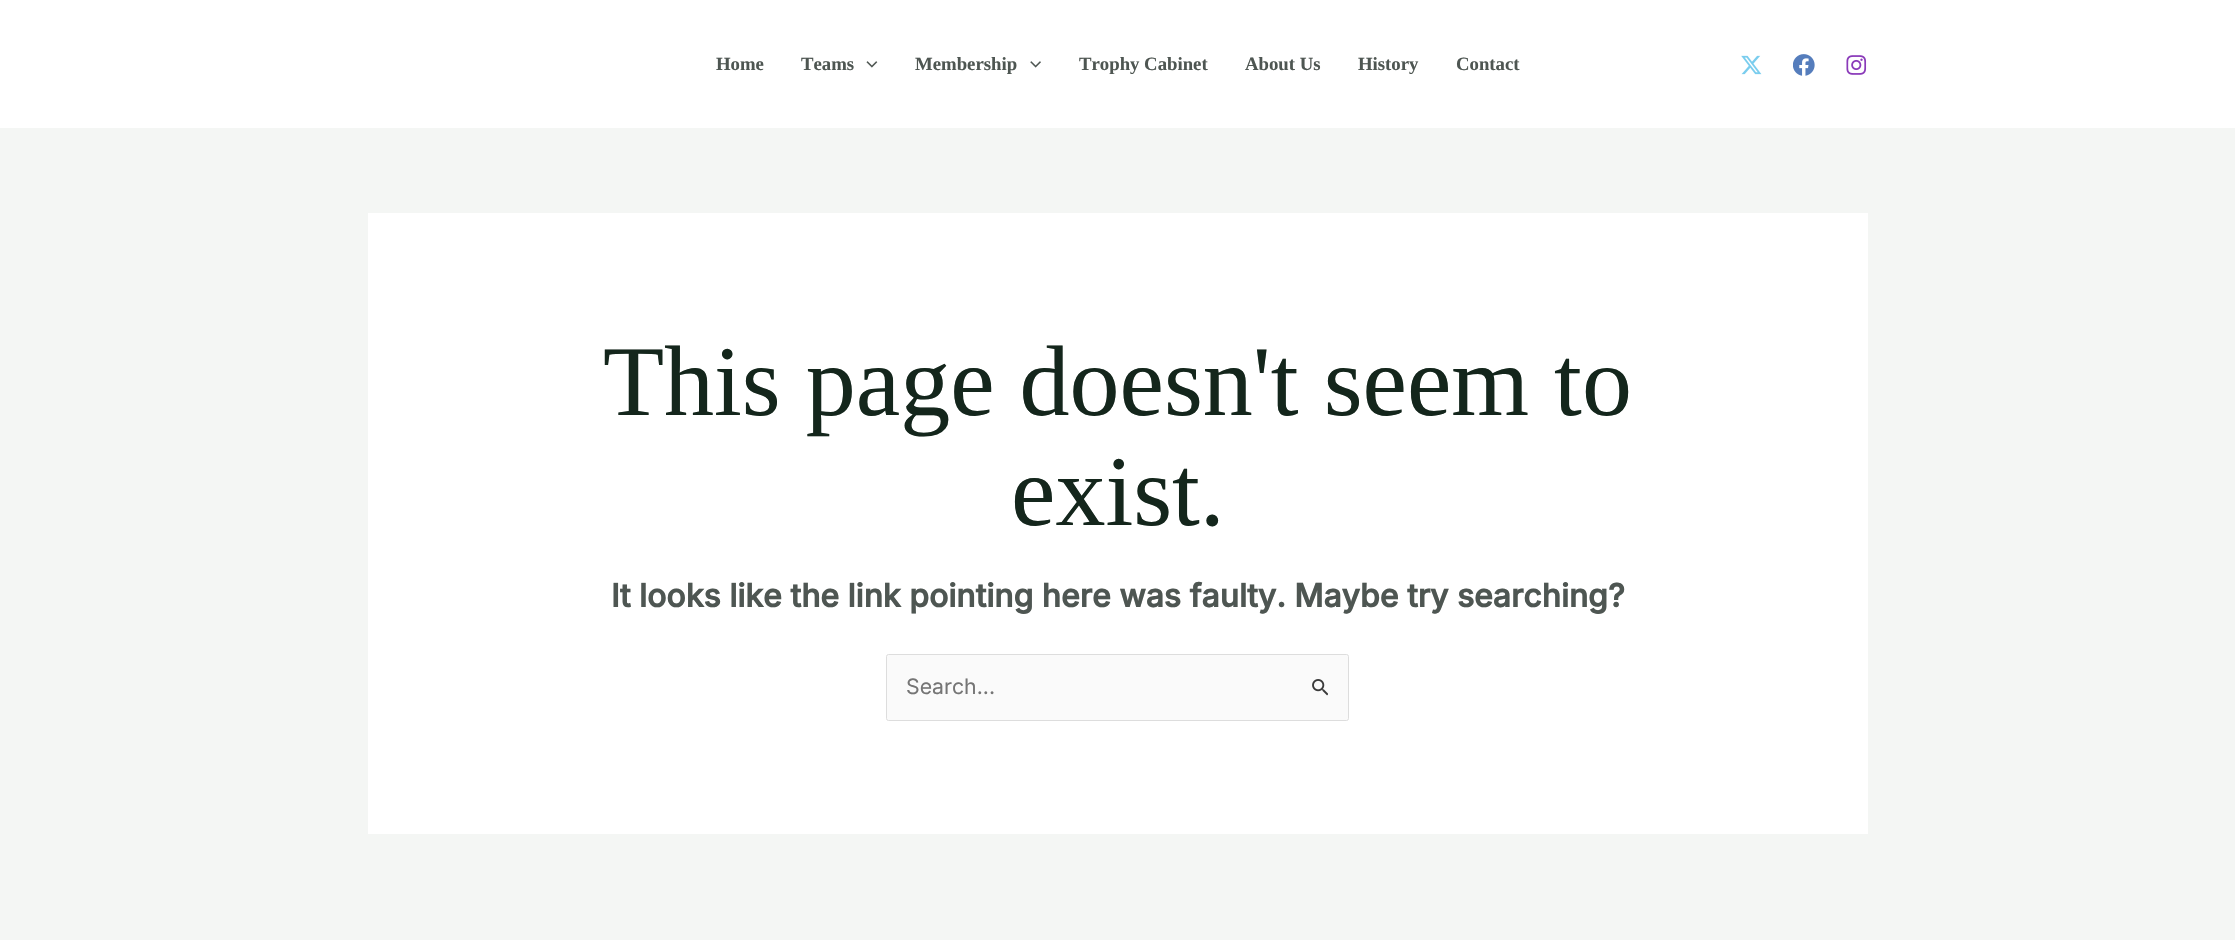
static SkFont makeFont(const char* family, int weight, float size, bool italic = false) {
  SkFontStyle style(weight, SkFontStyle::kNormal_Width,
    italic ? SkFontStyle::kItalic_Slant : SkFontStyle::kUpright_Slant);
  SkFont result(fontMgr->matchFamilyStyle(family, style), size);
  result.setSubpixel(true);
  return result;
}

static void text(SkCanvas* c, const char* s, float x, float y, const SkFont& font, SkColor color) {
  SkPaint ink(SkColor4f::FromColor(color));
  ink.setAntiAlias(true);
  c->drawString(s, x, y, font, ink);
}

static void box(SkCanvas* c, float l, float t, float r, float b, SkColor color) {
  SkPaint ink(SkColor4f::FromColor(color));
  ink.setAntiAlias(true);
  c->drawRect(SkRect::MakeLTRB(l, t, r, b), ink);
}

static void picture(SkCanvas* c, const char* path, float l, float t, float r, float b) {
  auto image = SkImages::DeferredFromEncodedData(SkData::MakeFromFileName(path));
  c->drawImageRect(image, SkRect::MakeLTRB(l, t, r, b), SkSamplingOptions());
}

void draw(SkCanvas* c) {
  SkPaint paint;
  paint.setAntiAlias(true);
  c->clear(0xfff4f6f4);
  box(c, 0, 0, 2235, 128, 0xffffffff);
  SkFont face1 = makeFont("Liberation Serif", 700, 18.75f);
  text(c, "Home", 716, 70, face1, 0xff4e5652);
  text(c, "Teams", 801, 70, face1, 0xff4e5652);
  picture(c, "img_01.png", 866, 61, 878, 68);
  text(c, "Membership", 915, 70, face1, 0xff4e5652);
  picture(c, "img_02.png", 1030, 61, 1041, 68);
  text(c, "Trophy Cabinet", 1079, 70, face1, 0xff4e5652);
  text(c, "About Us", 1245, 70, face1, 0xff4e5652);
  text(c, "History", 1358, 70, face1, 0xff4e5652);
  text(c, "Contact", 1456, 70, face1, 0xff4e5652);
  picture(c, "img_03.png", 1741, 55, 1762, 75);
  picture(c, "img_04.png", 1793, 54, 1815, 76);
  picture(c, "img_05.png", 1846, 55, 1867, 75);
  box(c, 368, 213, 1868, 834, 0xffffffff);
  SkFont face2 = makeFont("Liberation Serif", 400, 100);
  text(c, "This page doesn't seem to", 603, 415, face2, 0xff14261c);
  text(c, "exist.", 1011, 525, face2, 0xff14261c);
  SkFont face3 = makeFont("Inter", 700, 31.9f);
  text(c, "It looks like the link pointing here was faulty. Maybe try searching?", 611, 607, face3, 0xff4e5652);
  paint.setColor(0xfffafafa);
  c->drawRoundRect(SkRect::MakeLTRB(886.5f, 654.5f, 1348.5f, 720.5f), 2, 2, paint);
  paint.setStyle(SkPaint::kStroke_Style);
  paint.setStrokeWidth(1);
  paint.setColor(0xffdddddd);
  c->drawRoundRect(SkRect::MakeLTRB(886.5f, 654.5f, 1348.5f, 720.5f), 2, 2, paint);
  SkFont face4 = makeFont("Inter", 400, 21.25f);
  text(c, "Search...", 906, 694, face4, 0xff757575);
  picture(c, "img_06.png", 1312, 679, 1328, 696);
}
